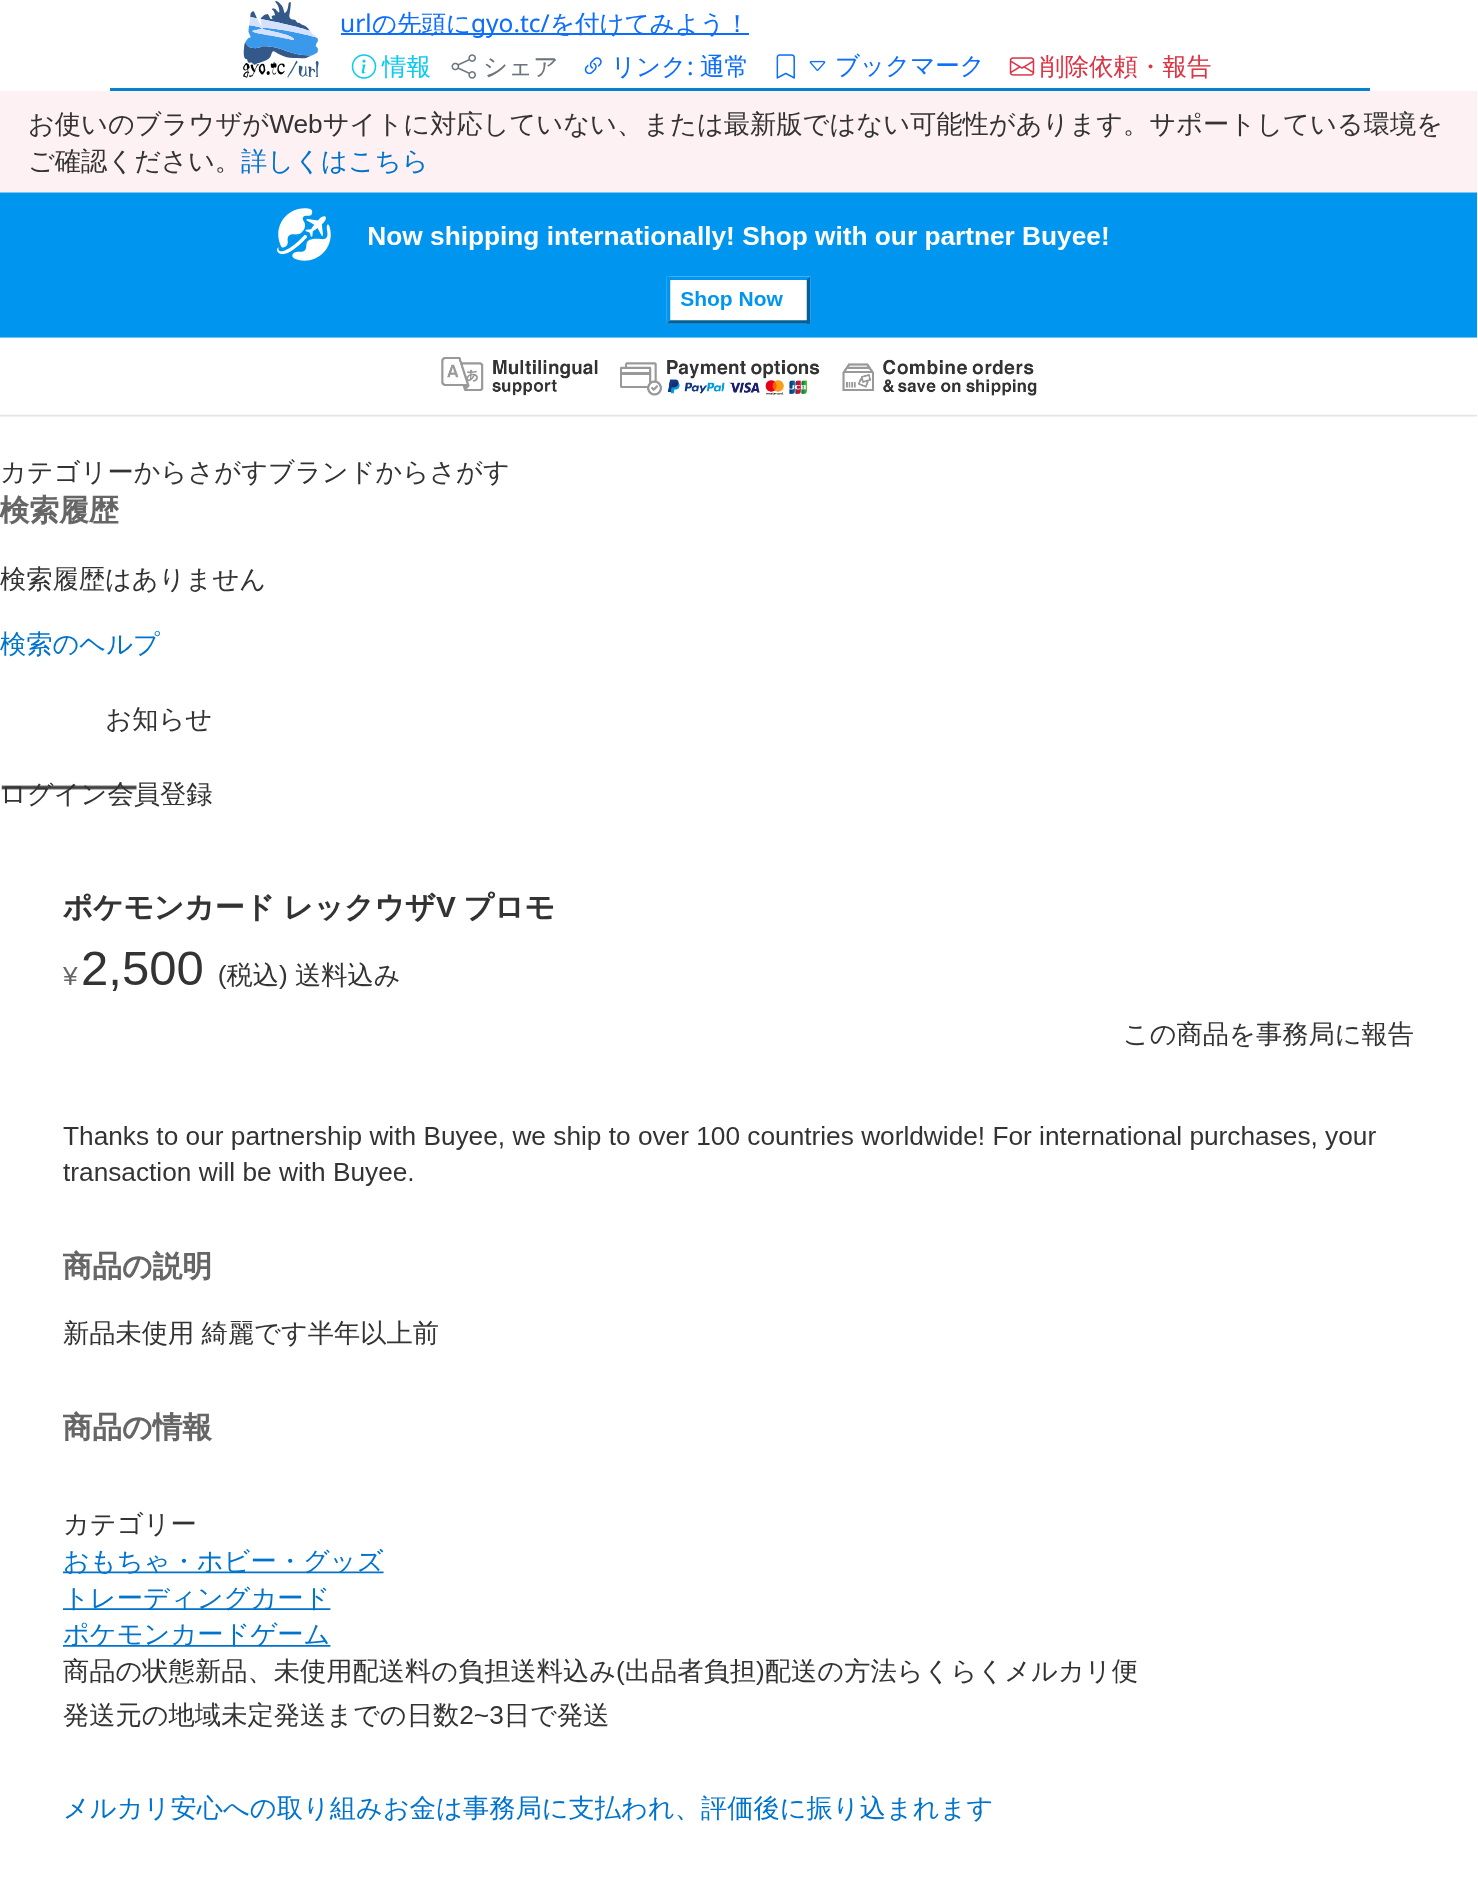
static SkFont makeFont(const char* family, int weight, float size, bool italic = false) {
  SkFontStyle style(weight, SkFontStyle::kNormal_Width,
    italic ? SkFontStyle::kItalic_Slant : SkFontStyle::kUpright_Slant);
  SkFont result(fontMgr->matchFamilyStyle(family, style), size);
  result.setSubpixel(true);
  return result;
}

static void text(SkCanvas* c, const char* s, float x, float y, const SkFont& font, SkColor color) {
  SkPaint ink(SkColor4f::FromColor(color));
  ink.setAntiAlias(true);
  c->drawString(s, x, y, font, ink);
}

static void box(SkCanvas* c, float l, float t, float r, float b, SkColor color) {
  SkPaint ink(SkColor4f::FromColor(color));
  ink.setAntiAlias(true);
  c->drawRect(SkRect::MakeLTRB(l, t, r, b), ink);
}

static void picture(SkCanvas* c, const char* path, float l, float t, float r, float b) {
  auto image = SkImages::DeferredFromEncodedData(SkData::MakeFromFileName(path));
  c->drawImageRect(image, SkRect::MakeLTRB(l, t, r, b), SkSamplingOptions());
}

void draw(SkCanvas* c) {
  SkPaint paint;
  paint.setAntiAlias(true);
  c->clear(0xffffffff);
  box(c, 110, 88, 1370, 91, 0xff0484ce);
  picture(c, "img_01.png", 243, 1, 319, 78);
  SkFont face1 = makeFont("Noto Sans", 400, 24.5f);
  text(c, "url", 340, 32, face1, 0xff0d6efd);
  box(c, 341, 33, 749, 35, 0xff0d6efd);
  SkFont face2 = makeFont("WenQuanYi Zen Hei", 500, 24.5f);
  text(c, "の先頭に", 372, 32, face2, 0xff0d6efd);
  text(c, "gyo.tc/", 471, 32, face1, 0xff0d6efd);
  text(c, "を付けてみよう！", 550, 32, face2, 0xff0d6efd);
  picture(c, "img_02.png", 351, 54, 377, 79);
  text(c, "情報", 382, 75, face2, 0xff0dcaf0);
  picture(c, "img_03.png", 451, 54, 476, 79);
  text(c, "シェア", 483, 75, face2, 0xff6c757d);
  picture(c, "img_04.png", 584, 57, 602, 75);
  text(c, "リンク", 611, 75, face2, 0xff0d6efd);
  text(c, ":", 687, 75, face1, 0xff0d6efd);
  text(c, "通常", 700, 75, face2, 0xff0d6efd);
  picture(c, "img_05.png", 776, 54, 795, 79);
  picture(c, "img_06.png", 809, 60, 826, 71);
  text(c, "ブックマーク", 835, 74, face2, 0xff0d6efd);
  picture(c, "img_07.png", 1009, 57, 1035, 76);
  text(c, "削除依頼・報告", 1040, 75, face2, 0xffdc3545);
  picture(c, "img_08.png", 0, 91, 1477, 1822);
}
